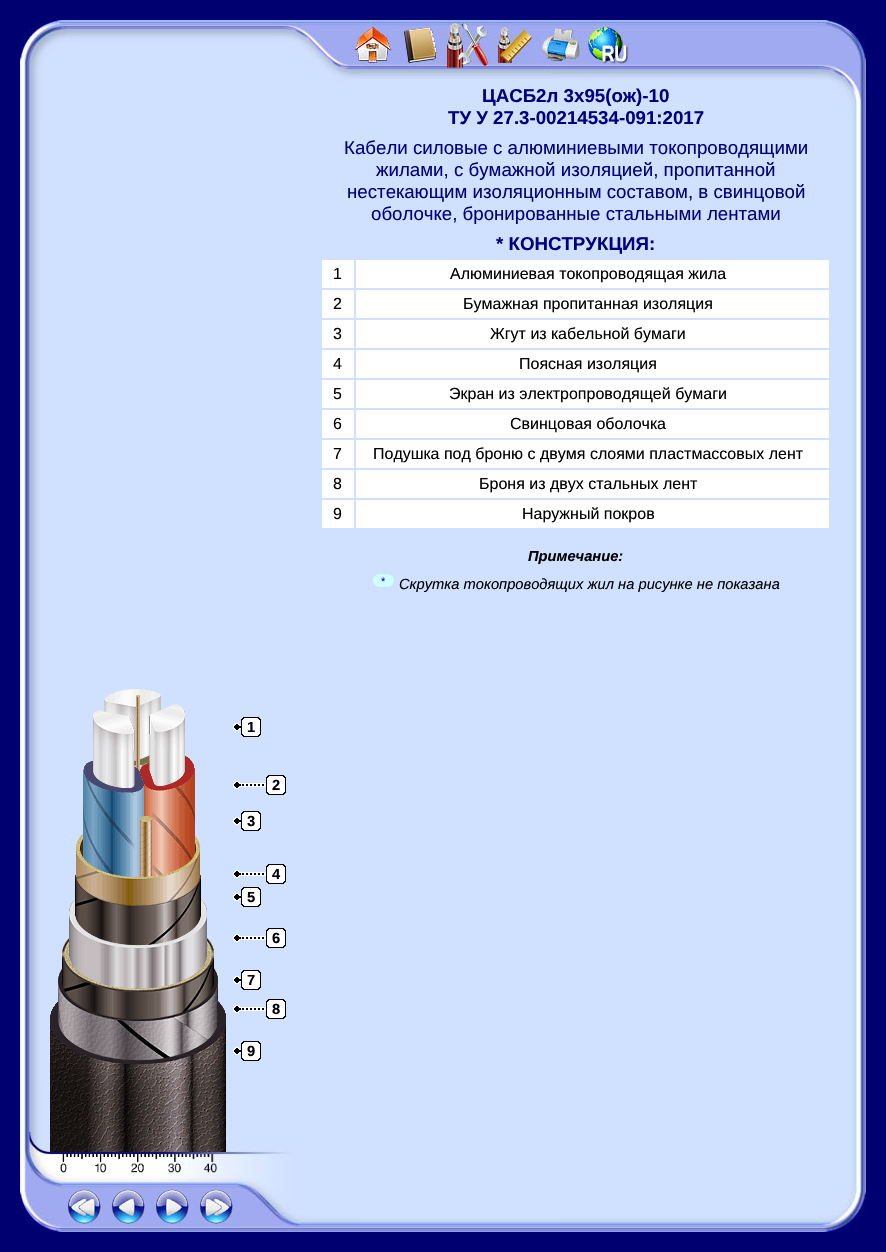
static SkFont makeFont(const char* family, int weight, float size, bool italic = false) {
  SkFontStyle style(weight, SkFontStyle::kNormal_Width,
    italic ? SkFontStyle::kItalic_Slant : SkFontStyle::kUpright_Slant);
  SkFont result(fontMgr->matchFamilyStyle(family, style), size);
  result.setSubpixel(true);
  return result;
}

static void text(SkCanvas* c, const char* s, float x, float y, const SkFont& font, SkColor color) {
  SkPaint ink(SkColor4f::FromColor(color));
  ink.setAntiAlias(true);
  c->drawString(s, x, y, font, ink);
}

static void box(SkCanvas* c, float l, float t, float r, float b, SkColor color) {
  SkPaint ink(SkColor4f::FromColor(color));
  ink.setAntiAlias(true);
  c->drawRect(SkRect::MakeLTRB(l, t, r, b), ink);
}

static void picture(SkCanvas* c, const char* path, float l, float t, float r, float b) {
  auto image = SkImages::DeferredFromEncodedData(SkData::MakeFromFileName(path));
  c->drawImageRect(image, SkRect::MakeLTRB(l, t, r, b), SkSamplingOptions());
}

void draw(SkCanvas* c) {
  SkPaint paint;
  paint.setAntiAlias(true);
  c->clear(0xff000070);
  picture(c, "img_01.png", 20, 20, 359, 120);
  box(c, 359, 79, 555, 80, 0xffd0e1ff);
  picture(c, "img_02.png", 359, 20, 555, 79);
  picture(c, "img_03.png", 555, 20, 866, 120);
  box(c, 40, 120, 359, 1082, 0xffd0e1ff);
  picture(c, "img_04.png", 20, 120, 40, 1082);
  box(c, 359, 604, 555, 1218, 0xffd0e1ff);
  box(c, 555, 120, 851, 1082, 0xffd0e1ff);
  picture(c, "img_05.png", 851, 120, 866, 1082);
  picture(c, "img_06.png", 20, 1082, 359, 1232);
  picture(c, "img_07.png", 359, 1218, 555, 1232);
  picture(c, "img_08.png", 555, 1082, 866, 1232);
  box(c, 348, 80, 831, 604, 0xffd0e1ff);
  SkFont face1 = makeFont("Liberation Sans", 700, 18.7f);
  text(c, "ЦАСБ2л 3x95(ож)-10", 482, 102, face1, 0xff000080);
  text(c, "ТУ У 27.3-00214534-091:2017", 448, 124, face1, 0xff000080);
  SkFont face2 = makeFont("Liberation Sans", 400, 18.7f);
  text(c, "Кабели силовые с алюминиевыми токопроводящими", 344, 154, face2, 0xff000080);
  text(c, "жилами, с бумажной изоляцией, пропитанной", 376, 176, face2, 0xff000080);
  text(c, "нестекающим изоляционным составом, в свинцовой", 347, 198, face2, 0xff000080);
  text(c, "оболочке, бронированные стальными лентами", 371, 220, face2, 0xff000080);
  text(c, "* КОНСТРУКЦИЯ:", 496, 250, face1, 0xff000080);
  box(c, 322, 260, 354, 288, 0xffffffff);
  SkFont face3 = makeFont("Liberation Sans", 400, 16);
  text(c, "1", 333, 279, face3, 0xff000000);
  box(c, 356, 260, 829, 288, 0xffffffff);
  text(c, "Алюминиевая токопроводящая жила", 450, 279, face3, 0xff000000);
  box(c, 322, 290, 354, 318, 0xffffffff);
  text(c, "2", 333, 309, face3, 0xff000000);
  box(c, 356, 290, 829, 318, 0xffffffff);
  text(c, "Бумажная пропитанная изоляция", 463, 309, face3, 0xff000000);
  box(c, 322, 320, 354, 348, 0xffffffff);
  text(c, "3", 333, 339, face3, 0xff000000);
  box(c, 356, 320, 829, 348, 0xffffffff);
  text(c, "Жгут из кабельной бумаги", 490, 339, face3, 0xff000000);
  box(c, 322, 350, 354, 378, 0xffffffff);
  text(c, "4", 333, 369, face3, 0xff000000);
  box(c, 356, 350, 829, 378, 0xffffffff);
  text(c, "Поясная изоляция", 519, 369, face3, 0xff000000);
  box(c, 322, 380, 354, 408, 0xffffffff);
  text(c, "5", 333, 399, face3, 0xff000000);
  box(c, 356, 380, 829, 408, 0xffffffff);
  text(c, "Экран из электропроводящей бумаги", 449, 399, face3, 0xff000000);
  box(c, 322, 410, 354, 438, 0xffffffff);
  text(c, "6", 333, 429, face3, 0xff000000);
  box(c, 356, 410, 829, 438, 0xffffffff);
  text(c, "Свинцовая оболочка", 510, 429, face3, 0xff000000);
  box(c, 322, 440, 354, 468, 0xffffffff);
  text(c, "7", 333, 459, face3, 0xff000000);
  box(c, 356, 440, 829, 468, 0xffffffff);
  text(c, "Подушка под броню c двумя слоями пластмассовых лент", 373, 459, face3, 0xff000000);
  box(c, 322, 470, 354, 498, 0xffffffff);
  text(c, "8", 333, 489, face3, 0xff000000);
  box(c, 356, 470, 829, 498, 0xffffffff);
  text(c, "Броня из двух стальных лент", 479, 489, face3, 0xff000000);
  box(c, 322, 500, 354, 528, 0xffffffff);
  text(c, "9", 333, 519, face3, 0xff000000);
  box(c, 356, 500, 829, 528, 0xffffffff);
  text(c, "Наружный покров", 522, 519, face3, 0xff000000);
  SkFont face4 = makeFont("Liberation Sans", 700, 14.7f, true);
  text(c, "Примечание:", 528, 561, face4, 0xff000000);
  picture(c, "img_09.png", 373, 574, 394, 587);
  SkFont face5 = makeFont("Liberation Sans", 400, 11);
  text(c, "*", 381, 585, face5, 0xff0000ff);
  SkFont face6 = makeFont("Liberation Sans", 400, 14.7f, true);
  text(c, "Скрутка токопроводящих жил на рисунке не показана", 399, 589, face6, 0xff000000);
  picture(c, "img_10.png", 349, 20, 396, 68);
  picture(c, "img_11.png", 404, 27, 443, 68);
  picture(c, "img_12.png", 443, 20, 490, 68);
  picture(c, "img_13.png", 498, 20, 537, 68);
  picture(c, "img_14.png", 537, 28, 584, 68);
  picture(c, "img_15.png", 584, 20, 631, 68);
  picture(c, "img_16.png", 105, 689, 161, 698);
  picture(c, "img_17.png", 50, 698, 226, 1152);
  picture(c, "img_18.png", 233, 725, 234, 729);
  picture(c, "img_19.png", 234, 723, 241, 731);
  picture(c, "img_20.png", 241, 717, 261, 737);
  SkFont face7 = makeFont("Liberation Sans", 700, 14.7f);
  text(c, "1", 247, 732, face7, 0xff000000);
  picture(c, "img_21.png", 233, 783, 266, 787);
  picture(c, "img_19.png", 234, 781, 241, 789);
  picture(c, "img_20.png", 266, 775, 286, 795);
  text(c, "2", 272, 790, face7, 0xff000000);
  picture(c, "img_18.png", 233, 819, 234, 823);
  picture(c, "img_19.png", 234, 817, 241, 825);
  picture(c, "img_20.png", 241, 811, 261, 831);
  text(c, "3", 247, 826, face7, 0xff000000);
  picture(c, "img_21.png", 233, 872, 266, 876);
  picture(c, "img_19.png", 234, 870, 241, 878);
  picture(c, "img_20.png", 266, 864, 286, 884);
  text(c, "4", 272, 879, face7, 0xff000000);
  picture(c, "img_18.png", 233, 895, 234, 899);
  picture(c, "img_19.png", 234, 893, 241, 901);
  picture(c, "img_20.png", 241, 887, 261, 907);
  text(c, "5", 247, 902, face7, 0xff000000);
  picture(c, "img_21.png", 233, 936, 266, 940);
  picture(c, "img_19.png", 234, 934, 241, 942);
  picture(c, "img_20.png", 266, 928, 286, 948);
  text(c, "6", 272, 943, face7, 0xff000000);
  picture(c, "img_18.png", 233, 978, 234, 982);
  picture(c, "img_19.png", 234, 976, 241, 984);
  picture(c, "img_20.png", 241, 970, 261, 990);
  text(c, "7", 247, 985, face7, 0xff000000);
  picture(c, "img_21.png", 233, 1007, 266, 1011);
  picture(c, "img_19.png", 234, 1005, 241, 1013);
  picture(c, "img_20.png", 266, 999, 286, 1019);
  text(c, "8", 272, 1014, face7, 0xff000000);
  picture(c, "img_18.png", 233, 1049, 234, 1053);
  picture(c, "img_19.png", 234, 1047, 241, 1055);
  picture(c, "img_20.png", 241, 1041, 261, 1061);
  text(c, "9", 247, 1056, face7, 0xff000000);
  picture(c, "img_22.png", 60, 1154, 217, 1173);
  picture(c, "img_23.png", 62, 1182, 106, 1232);
  picture(c, "img_24.png", 106, 1182, 150, 1232);
  picture(c, "img_25.png", 150, 1182, 194, 1232);
  picture(c, "img_26.png", 194, 1182, 238, 1232);
}
